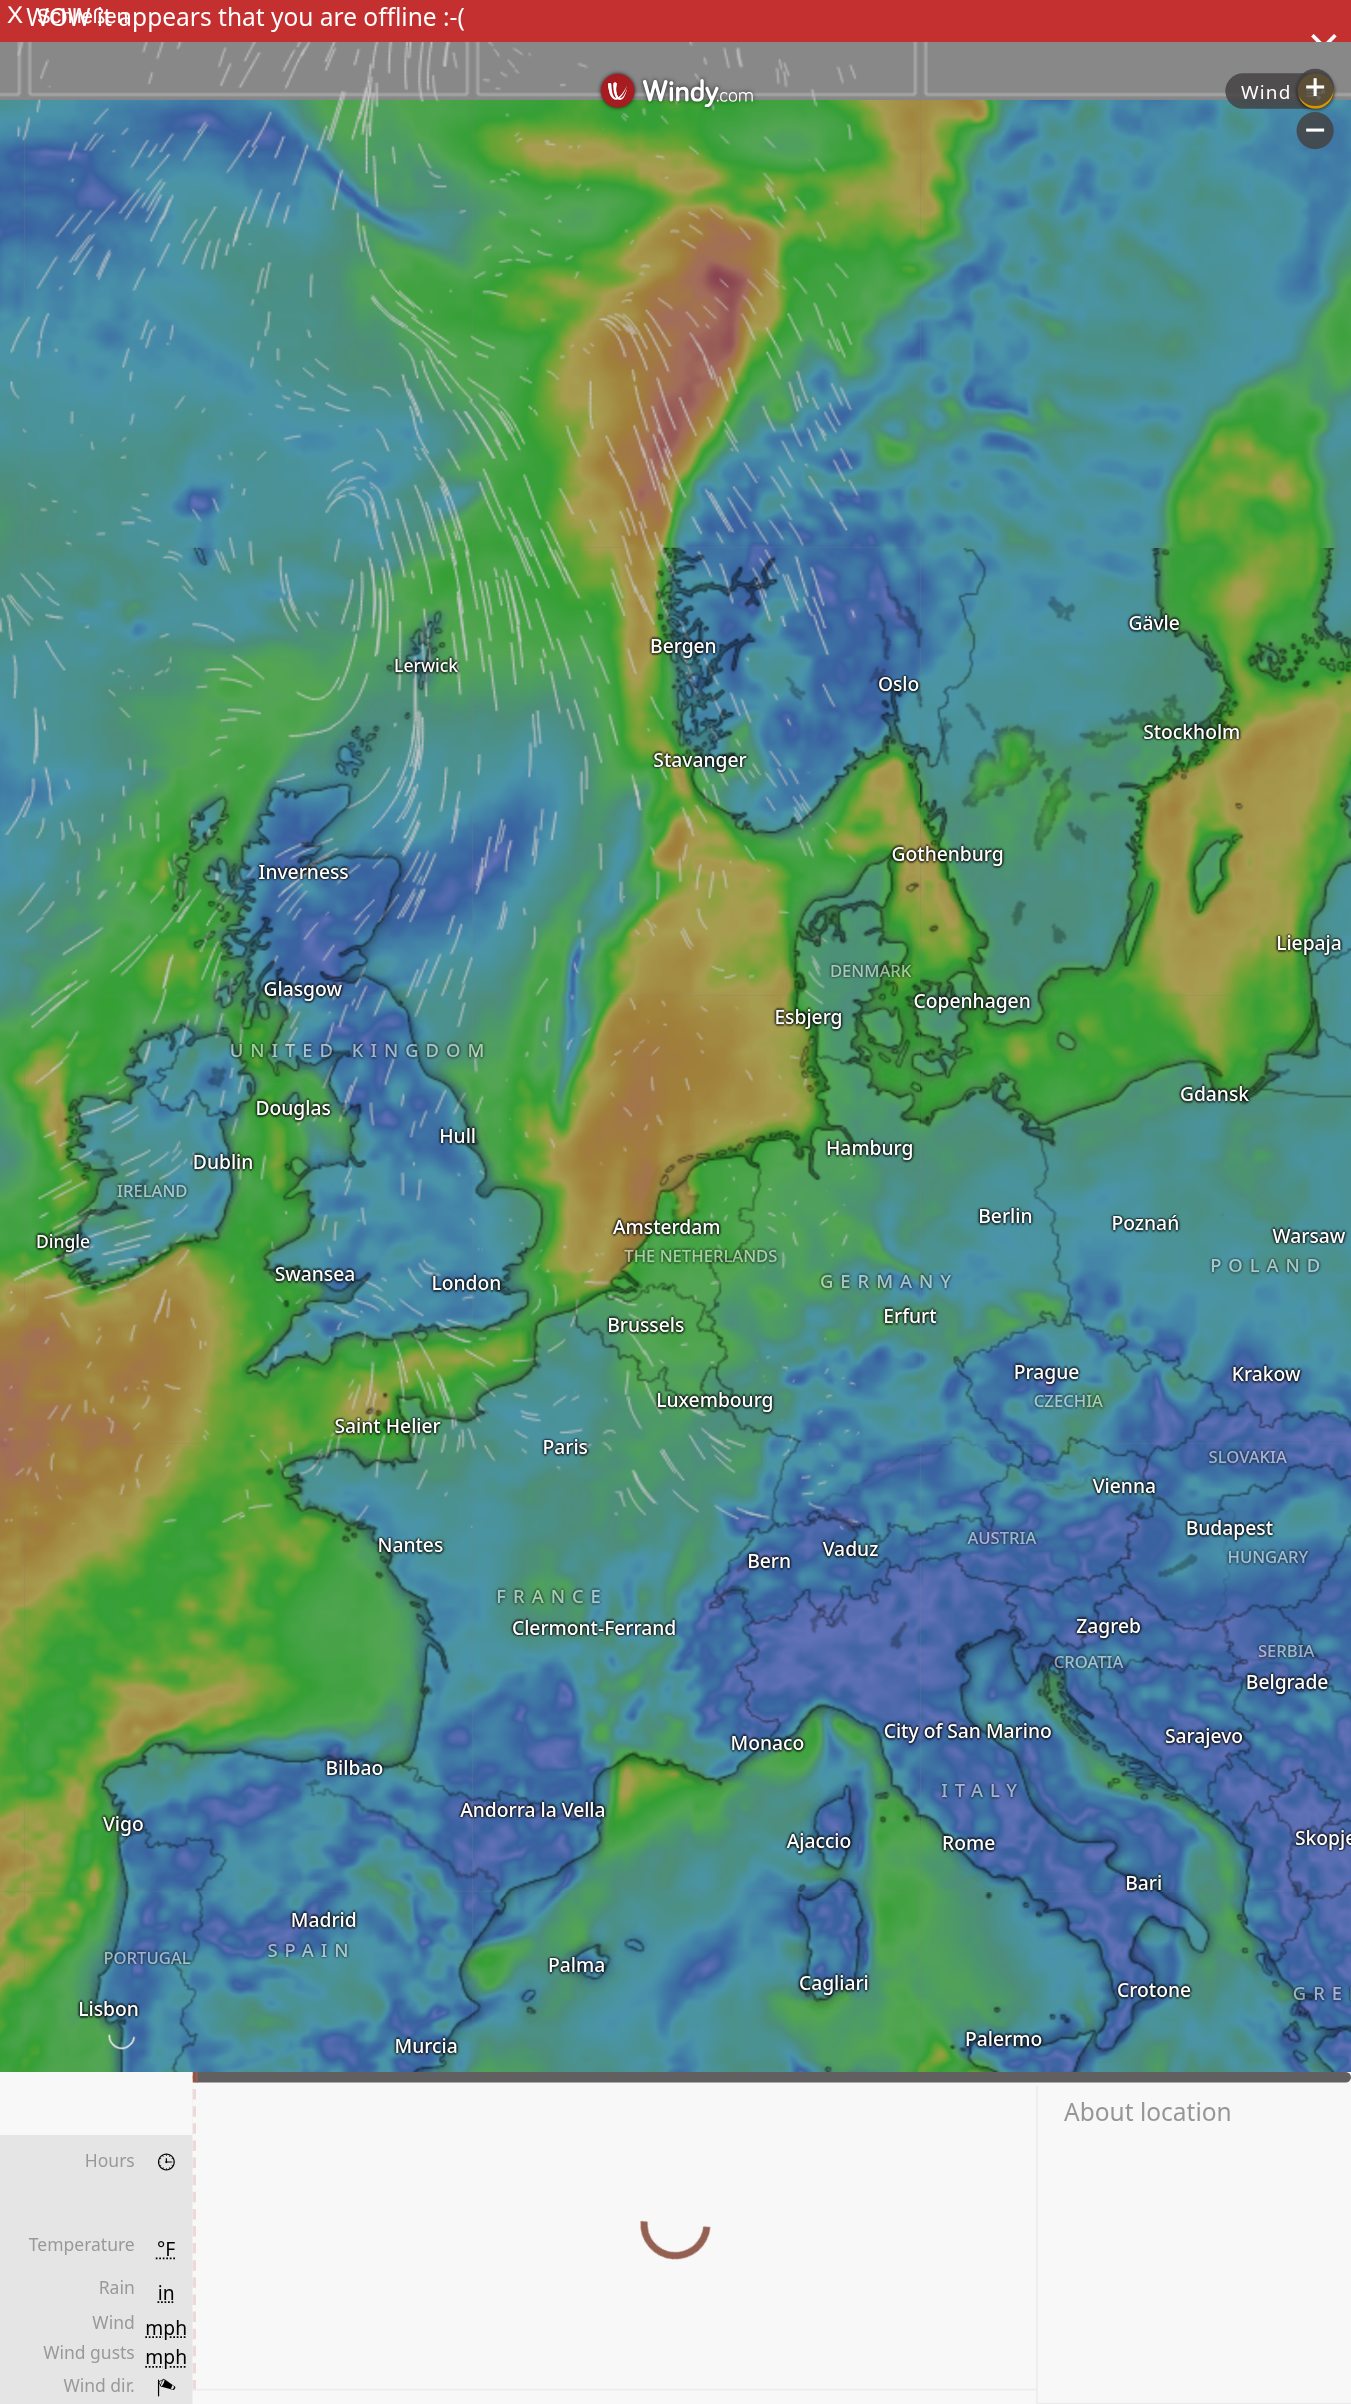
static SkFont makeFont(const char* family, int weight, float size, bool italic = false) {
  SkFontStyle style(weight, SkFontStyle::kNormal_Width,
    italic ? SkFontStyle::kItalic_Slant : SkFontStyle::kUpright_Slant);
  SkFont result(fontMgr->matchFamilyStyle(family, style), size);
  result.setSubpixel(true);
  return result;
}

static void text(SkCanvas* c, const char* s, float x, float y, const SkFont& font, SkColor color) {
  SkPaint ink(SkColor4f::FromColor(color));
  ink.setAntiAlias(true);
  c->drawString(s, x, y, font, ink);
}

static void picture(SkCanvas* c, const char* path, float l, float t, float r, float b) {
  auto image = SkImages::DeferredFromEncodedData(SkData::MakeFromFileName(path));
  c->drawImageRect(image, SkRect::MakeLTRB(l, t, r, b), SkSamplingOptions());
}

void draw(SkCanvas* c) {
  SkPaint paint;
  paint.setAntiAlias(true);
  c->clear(0xffffffff);
  picture(c, "img_01.png", 0, 0, 1351, 2404);
  SkFont face1 = makeFont("Liberation Sans", 400, 24);
  text(c, "X", 7, 23, face1, 0xffffffff);
  SkFont face2 = makeFont("Liberation Sans", 400, 20.5f);
  text(c, "Schließen", 37, 23, face2, 0xffffffff);
  picture(c, "img_02.png", 108, 2021, 712, 2260);
}
